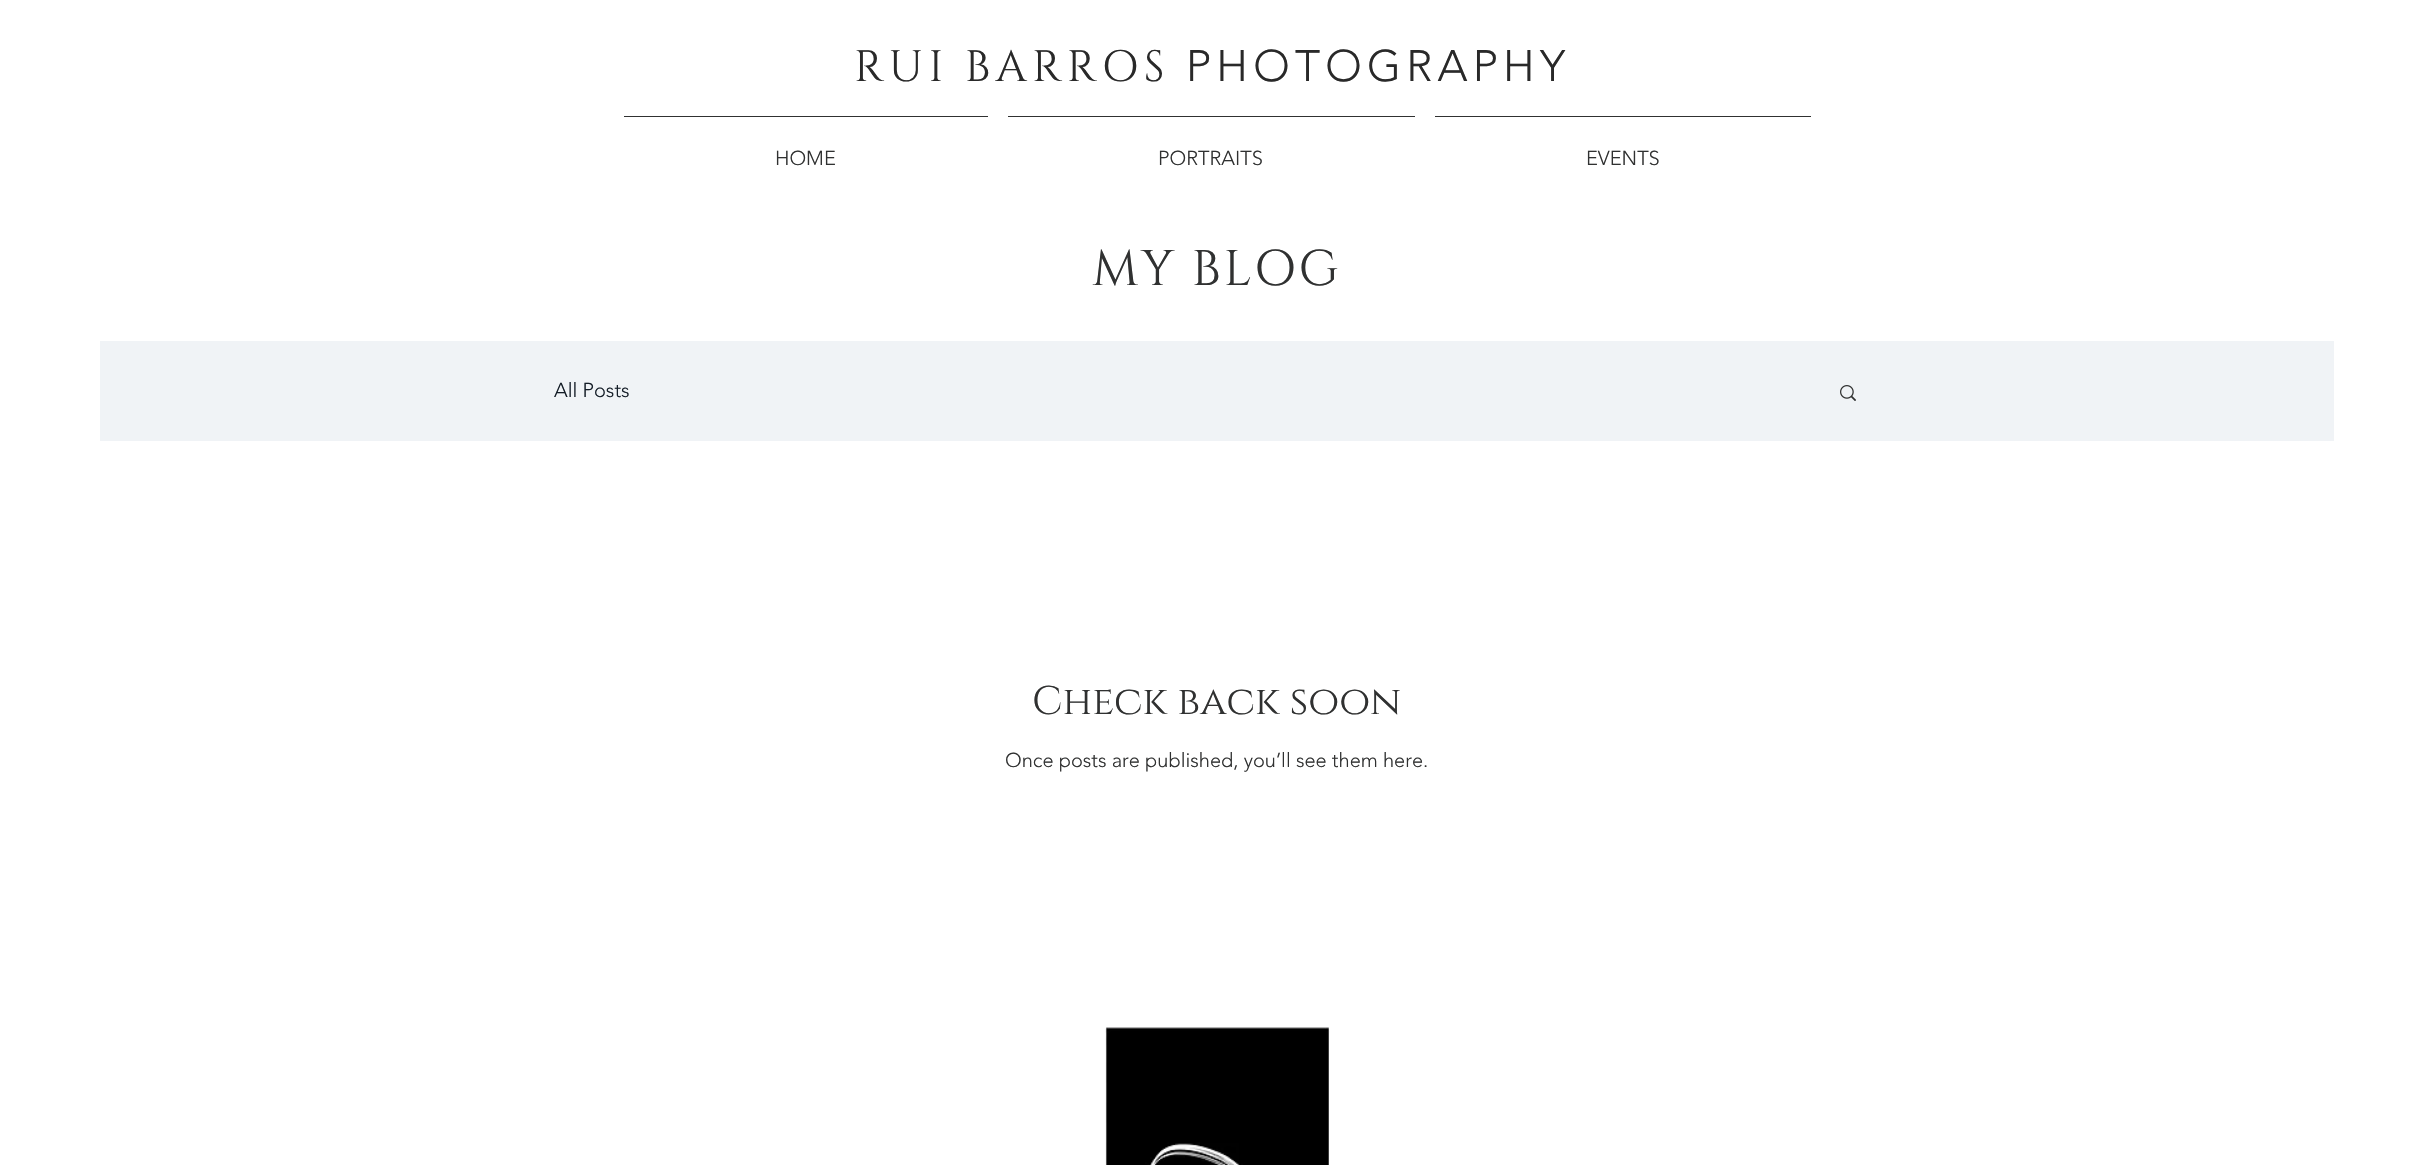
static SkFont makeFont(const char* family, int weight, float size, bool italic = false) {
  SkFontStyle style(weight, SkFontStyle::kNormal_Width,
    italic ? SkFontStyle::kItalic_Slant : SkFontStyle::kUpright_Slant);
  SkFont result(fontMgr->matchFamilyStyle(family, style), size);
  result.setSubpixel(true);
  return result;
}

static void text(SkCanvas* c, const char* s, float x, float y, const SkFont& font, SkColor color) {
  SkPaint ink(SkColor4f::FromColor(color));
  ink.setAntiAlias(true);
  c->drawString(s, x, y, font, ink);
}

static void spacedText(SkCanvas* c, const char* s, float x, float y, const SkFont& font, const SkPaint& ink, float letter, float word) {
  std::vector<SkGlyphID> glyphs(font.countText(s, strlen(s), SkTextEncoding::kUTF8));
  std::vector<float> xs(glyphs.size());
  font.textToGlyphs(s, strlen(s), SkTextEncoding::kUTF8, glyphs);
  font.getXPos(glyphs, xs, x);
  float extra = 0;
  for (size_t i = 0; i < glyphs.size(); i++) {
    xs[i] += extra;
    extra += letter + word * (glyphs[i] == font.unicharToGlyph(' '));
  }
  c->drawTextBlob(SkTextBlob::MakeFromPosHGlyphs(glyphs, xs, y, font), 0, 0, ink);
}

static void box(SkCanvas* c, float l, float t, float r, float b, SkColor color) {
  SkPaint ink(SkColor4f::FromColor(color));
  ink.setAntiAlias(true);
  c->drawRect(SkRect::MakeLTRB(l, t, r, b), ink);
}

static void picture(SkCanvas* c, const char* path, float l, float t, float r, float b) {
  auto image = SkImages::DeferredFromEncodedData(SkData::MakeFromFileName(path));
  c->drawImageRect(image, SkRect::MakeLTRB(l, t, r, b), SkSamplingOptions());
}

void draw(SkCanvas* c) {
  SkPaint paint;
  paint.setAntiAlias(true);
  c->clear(0xffffffff);
  SkFont face1 = makeFont("Cinzel", 400, 43.75f);
  paint.setColor(0xff292929);
  spacedText(c, "RUI BARROS", 854, 81, face1, paint, 5.25f, 0);
  SkFont face2 = makeFont("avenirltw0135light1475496", 300, 43.75f);
  spacedText(c, "PHOTOGRAPHY", 1186, 81, face2, paint, 5.25f, 0);
  box(c, 624, 116, 988, 117, 0xff303131);
  SkFont face3 = makeFont("avenirltw0135light1475496", 300, 20);
  text(c, "HOME", 775, 165, face3, 0xff303131);
  box(c, 1008, 116, 1415, 117, 0xff303131);
  text(c, "PORTRAITS", 1158, 165, face3, 0xff303131);
  box(c, 1435, 116, 1811, 117, 0xff303131);
  text(c, "EVENTS", 1586, 165, face3, 0xff303131);
  SkFont face4 = makeFont("Cinzel", 400, 50);
  paint.setColor(0xff303131);
  spacedText(c, "MY BLOG", 1092, 285, face4, paint, 2.5f, 0);
  box(c, 100, 341, 2334, 441, 0xfff0f3f6);
  text(c, "All Posts", 554, 397, face3, 0xff141d27);
  picture(c, "img_01.png", 1840, 385, 1856, 401);
  SkFont face5 = makeFont("Cinzel", 400, 40);
  text(c, "Check back soon", 1032, 714, face5, 0xff303131);
  text(c, "Once posts are published, you’ll see them here.", 1005, 767, face3, 0xff303131);
  picture(c, "img_02.png", 1105, 1027, 1330, 1165);
}
